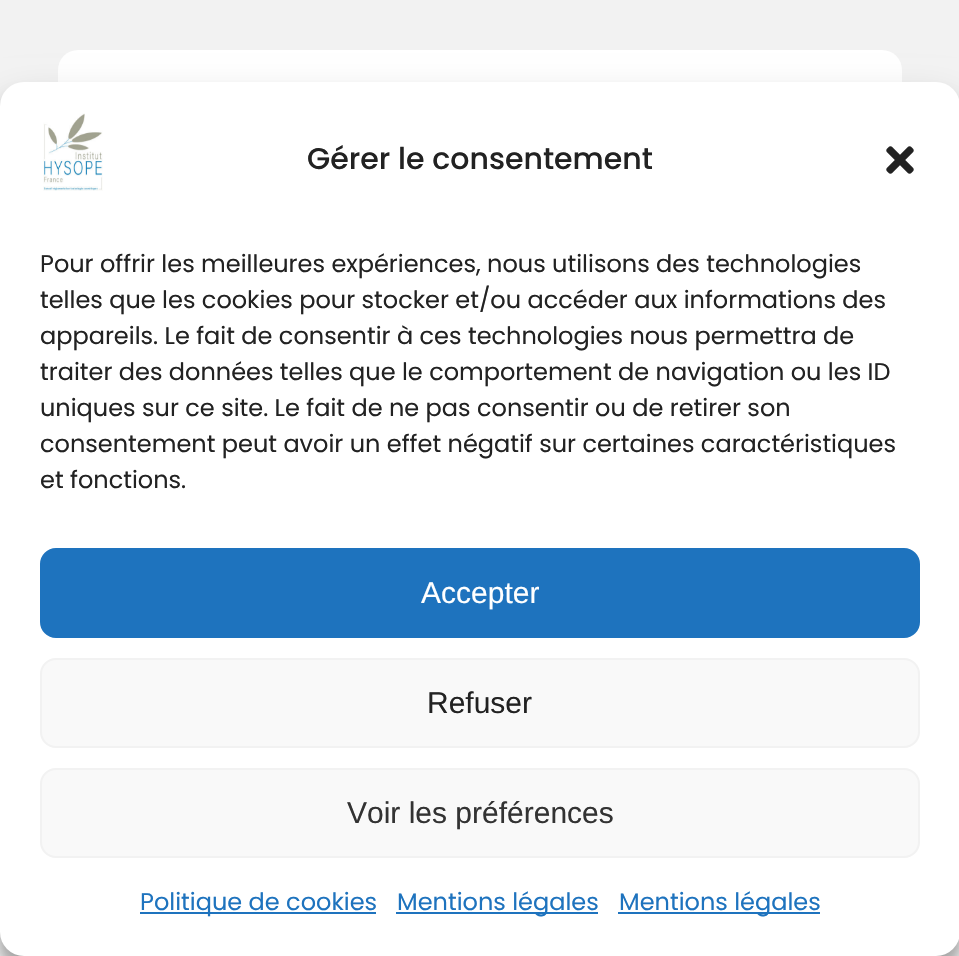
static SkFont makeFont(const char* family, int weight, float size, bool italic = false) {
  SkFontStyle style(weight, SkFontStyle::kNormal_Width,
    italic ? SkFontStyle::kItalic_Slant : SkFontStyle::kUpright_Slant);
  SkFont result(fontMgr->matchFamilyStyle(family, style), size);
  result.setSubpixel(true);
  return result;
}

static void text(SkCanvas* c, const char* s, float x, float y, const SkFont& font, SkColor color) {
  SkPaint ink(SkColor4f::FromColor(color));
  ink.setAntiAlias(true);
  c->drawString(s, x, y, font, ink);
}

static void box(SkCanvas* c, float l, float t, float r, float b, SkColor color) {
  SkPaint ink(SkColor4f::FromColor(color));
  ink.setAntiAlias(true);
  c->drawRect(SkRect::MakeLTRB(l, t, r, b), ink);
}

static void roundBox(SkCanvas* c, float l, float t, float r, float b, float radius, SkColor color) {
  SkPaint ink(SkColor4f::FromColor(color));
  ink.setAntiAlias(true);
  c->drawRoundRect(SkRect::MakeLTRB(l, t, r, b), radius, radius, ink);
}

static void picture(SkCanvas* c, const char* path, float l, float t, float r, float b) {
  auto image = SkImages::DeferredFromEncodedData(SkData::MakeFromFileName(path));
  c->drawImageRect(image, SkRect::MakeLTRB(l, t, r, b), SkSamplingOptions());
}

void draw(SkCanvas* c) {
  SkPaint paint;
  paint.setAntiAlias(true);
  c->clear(0xfff7f7f7);
  {
    const SkColor colors[] = {0xfff2f2f2, 0xfff7f7f7};
    const float stops[] = {0, 1};
    const SkPoint ends[] = {{480, 0}, {480, 580}};
    paint.setShader(SkGradientShader::MakeLinear(ends, colors, stops, 2, SkTileMode::kClamp));
    paint.setAlpha(255);
  }
  c->drawRect(SkRect::MakeLTRB(0, 0, 959, 106), paint);
  roundBox(c, 58, 50, 902, 298, 20, 0xffffffff);
  paint.setShader(nullptr);
  paint.setColor(0x3b000000);
  paint.setMaskFilter(SkMaskFilter::MakeBlur(kNormal_SkBlurStyle, 6));
  c->drawRoundRect(SkRect::MakeLTRB(0, 94, 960, 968), 24, 24, paint);
  paint.setMaskFilter(nullptr);
  paint.setColor(0x30000000);
  paint.setMaskFilter(SkMaskFilter::MakeBlur(kNormal_SkBlurStyle, 20));
  c->drawRoundRect(SkRect::MakeLTRB(0, 102, 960, 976), 24, 24, paint);
  paint.setMaskFilter(nullptr);
  roundBox(c, 0, 82, 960, 956, 24, 0xffffffff);
  picture(c, "img_01.png", 43, 113, 103, 191);
  SkFont face1 = makeFont("Poppins", 500, 30);
  text(c, "Gérer le consentement", 307, 169, face1, 0xff222222);
  picture(c, "img_02.png", 886, 146, 914, 174);
  SkFont face2 = makeFont("Poppins", 400, 24);
  text(c, "Pour offrir les meilleures expériences, nous utilisons des technologies", 40, 272, face2, 0xff222222);
  text(c, "telles que les cookies pour stocker et/ou accéder aux informations des", 40, 308, face2, 0xff222222);
  text(c, "appareils. Le fait de consentir à ces technologies nous permettra de", 40, 344, face2, 0xff222222);
  text(c, "traiter des données telles que le comportement de navigation ou les ID", 40, 380, face2, 0xff222222);
  text(c, "uniques sur ce site. Le fait de ne pas consentir ou de retirer son", 40, 416, face2, 0xff222222);
  text(c, "consentement peut avoir un effet négatif sur certaines caractéristiques", 40, 452, face2, 0xff222222);
  text(c, "et fonctions.", 40, 488, face2, 0xff222222);
  paint.setColor(0xff1e73be);
  c->drawRoundRect(SkRect::MakeLTRB(41, 549, 919, 637), 15, 15, paint);
  paint.setStyle(SkPaint::kStroke_Style);
  paint.setStrokeWidth(2);
  c->drawRoundRect(SkRect::MakeLTRB(41, 549, 919, 637), 15, 15, paint);
  SkFont face3 = makeFont("Liberation Sans", 400, 30);
  text(c, "Accepter", 421, 603, face3, 0xffffffff);
  paint.setStyle(SkPaint::kFill_Style);
  paint.setColor(0xfff9f9f9);
  c->drawRoundRect(SkRect::MakeLTRB(41, 659, 919, 747), 15, 15, paint);
  paint.setStyle(SkPaint::kStroke_Style);
  paint.setColor(0xfff2f2f2);
  c->drawRoundRect(SkRect::MakeLTRB(41, 659, 919, 747), 15, 15, paint);
  text(c, "Refuser", 427, 713, face3, 0xff222222);
  paint.setStyle(SkPaint::kFill_Style);
  paint.setColor(0xfff9f9f9);
  c->drawRoundRect(SkRect::MakeLTRB(41, 769, 919, 857), 15, 15, paint);
  paint.setStyle(SkPaint::kStroke_Style);
  paint.setColor(0xfff2f2f2);
  c->drawRoundRect(SkRect::MakeLTRB(41, 769, 919, 857), 15, 15, paint);
  text(c, "Voir les préférences", 347, 823, face3, 0xff333333);
  box(c, 140, 912, 376, 914, 0xff1e73be);
  text(c, "Politique de cookies", 140, 910, face2, 0xff1e73be);
  box(c, 396, 912, 598, 914, 0xff1e73be);
  text(c, "Mentions légales", 397, 910, face2, 0xff1e73be);
  box(c, 618, 912, 820, 914, 0xff1e73be);
  text(c, "Mentions légales", 619, 910, face2, 0xff1e73be);
}
